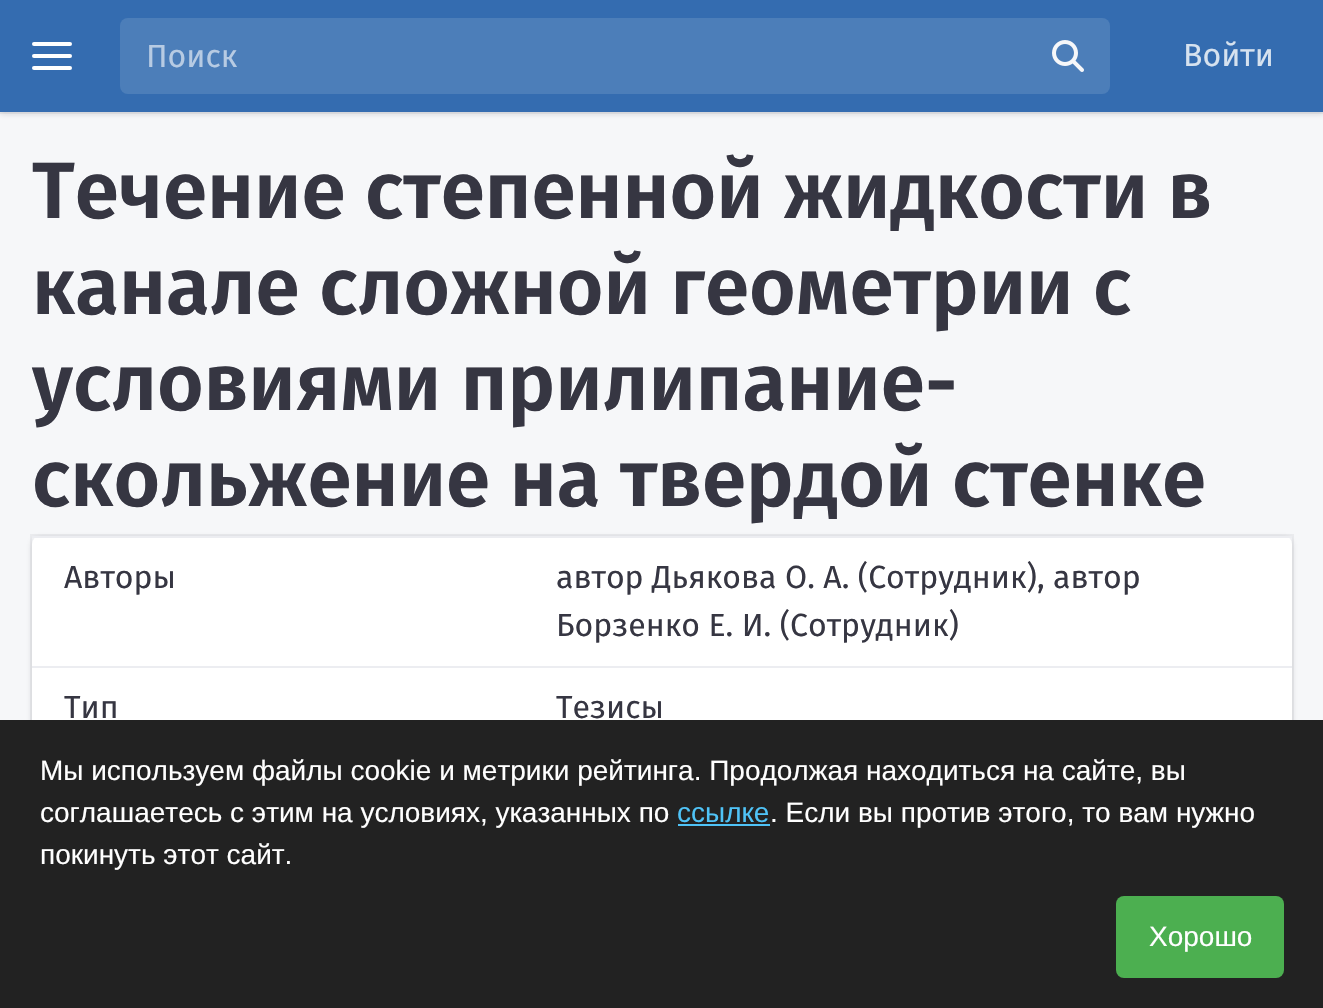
static SkFont makeFont(const char* family, int weight, float size, bool italic = false) {
  SkFontStyle style(weight, SkFontStyle::kNormal_Width,
    italic ? SkFontStyle::kItalic_Slant : SkFontStyle::kUpright_Slant);
  SkFont result(fontMgr->matchFamilyStyle(family, style), size);
  result.setSubpixel(true);
  return result;
}

static void text(SkCanvas* c, const char* s, float x, float y, const SkFont& font, SkColor color) {
  SkPaint ink(SkColor4f::FromColor(color));
  ink.setAntiAlias(true);
  c->drawString(s, x, y, font, ink);
}

static void box(SkCanvas* c, float l, float t, float r, float b, SkColor color) {
  SkPaint ink(SkColor4f::FromColor(color));
  ink.setAntiAlias(true);
  c->drawRect(SkRect::MakeLTRB(l, t, r, b), ink);
}

static void roundBox(SkCanvas* c, float l, float t, float r, float b, float radius, SkColor color) {
  SkPaint ink(SkColor4f::FromColor(color));
  ink.setAntiAlias(true);
  c->drawRoundRect(SkRect::MakeLTRB(l, t, r, b), radius, radius, ink);
}

static void picture(SkCanvas* c, const char* path, float l, float t, float r, float b) {
  auto image = SkImages::DeferredFromEncodedData(SkData::MakeFromFileName(path));
  c->drawImageRect(image, SkRect::MakeLTRB(l, t, r, b), SkSamplingOptions());
}

void draw(SkCanvas* c) {
  SkPaint paint;
  paint.setAntiAlias(true);
  c->clear(0xfff6f7f9);
  paint.setColor(0x2614141f);
  paint.setMaskFilter(SkMaskFilter::MakeBlur(kNormal_SkBlurStyle, 3));
  c->drawRect(SkRect::MakeLTRB(0, 2, 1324, 114), paint);
  paint.setMaskFilter(nullptr);
  paint.setStyle(SkPaint::kStroke_Style);
  paint.setStrokeWidth(2);
  paint.setColor(0x0d14141f);
  c->drawRect(SkRect::MakeLTRB(-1, -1, 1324, 113), paint);
  box(c, 0, 0, 1323, 112, 0xff346cb0);
  roundBox(c, 32, 54, 72, 58, 2, 0xffffffff);
  roundBox(c, 32, 42, 72, 46, 2, 0xffffffff);
  roundBox(c, 32, 66, 72, 70, 2, 0xffffffff);
  roundBox(c, 120, 18, 1110, 94, 8, 0xff4c7eb9);
  SkFont face1 = makeFont("Fira Sans", 400, 32);
  text(c, "Поиск", 146, 67, face1, 0xffb7cbe3);
  picture(c, "img_01.png", 1052, 40, 1084, 72);
  text(c, "Войти", 1183, 66, face1, 0xffd6e2ef);
  SkFont face2 = makeFont("Fira Sans", 600, 80);
  text(c, "Течение степенной жидкости в", 32, 218, face2, 0xff363642);
  text(c, "канале сложной геометрии с", 32, 314, face2, 0xff363642);
  text(c, "условиями прилипание-", 32, 410, face2, 0xff363642);
  text(c, "скольжение на твердой стенке", 32, 506, face2, 0xff363642);
  paint.setStyle(SkPaint::kFill_Style);
  paint.setColor(0x2614141f);
  paint.setMaskFilter(SkMaskFilter::MakeBlur(kNormal_SkBlurStyle, 3));
  c->drawRoundRect(SkRect::MakeLTRB(32, 538, 1292, 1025), 8, 8, paint);
  paint.setMaskFilter(nullptr);
  paint.setStyle(SkPaint::kStroke_Style);
  paint.setColor(0x0d14141f);
  c->drawRect(SkRect::MakeLTRB(31, 535, 1293, 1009), paint);
  roundBox(c, 32, 536, 1292, 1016, 8, 0xffffffff);
  text(c, "Авторы", 64, 588, face1, 0xff363642);
  box(c, 32, 536, 1292, 538, 0xffecedf1);
  text(c, "автор Дьякова О. А. (Сотрудник), автор", 556, 588, face1, 0xff363642);
  text(c, "Борзенко Е. И. (Сотрудник)", 556, 636, face1, 0xff363642);
  text(c, "Тип", 64, 718, face1, 0xff363642);
  box(c, 32, 666, 1292, 668, 0xffecedf1);
  text(c, "Тезисы", 556, 718, face1, 0xff363642);
  box(c, 0, 720, 1323, 1008, 0xff222222);
  SkFont face3 = makeFont("Liberation Sans", 400, 28);
  text(c, "Мы используем файлы cookie и метрики рейтинга. Продолжая находиться на сайте, вы", 40, 780, face3, 0xffffffff);
  text(c, "соглашаетесь с этим на условиях, указанных по", 40, 822, face3, 0xffffffff);
  text(c, "ссылке", 677, 822, face3, 0xff4fc3f7);
  box(c, 678, 824, 770, 826, 0xff4fc3f7);
  text(c, ". Если вы против этого, то вам нужно", 770, 822, face3, 0xffffffff);
  text(c, "покинуть этот сайт.", 40, 864, face3, 0xffffffff);
  roundBox(c, 1116, 896, 1284, 978, 8, 0xff4caf50);
  text(c, "Хорошо", 1149, 946, face3, 0xffffffff);
}
